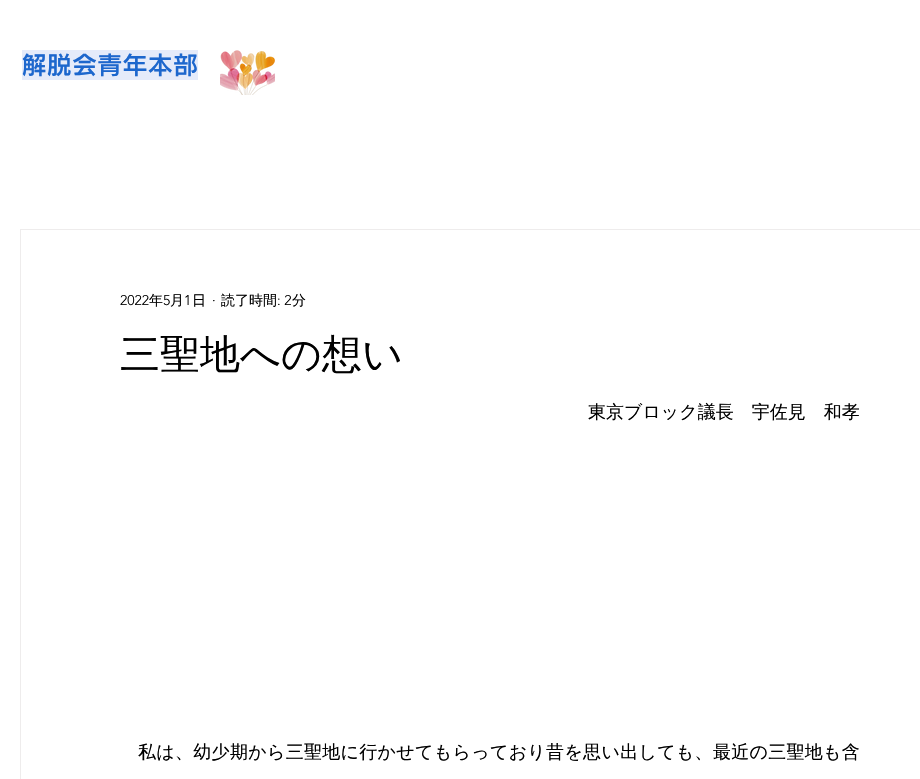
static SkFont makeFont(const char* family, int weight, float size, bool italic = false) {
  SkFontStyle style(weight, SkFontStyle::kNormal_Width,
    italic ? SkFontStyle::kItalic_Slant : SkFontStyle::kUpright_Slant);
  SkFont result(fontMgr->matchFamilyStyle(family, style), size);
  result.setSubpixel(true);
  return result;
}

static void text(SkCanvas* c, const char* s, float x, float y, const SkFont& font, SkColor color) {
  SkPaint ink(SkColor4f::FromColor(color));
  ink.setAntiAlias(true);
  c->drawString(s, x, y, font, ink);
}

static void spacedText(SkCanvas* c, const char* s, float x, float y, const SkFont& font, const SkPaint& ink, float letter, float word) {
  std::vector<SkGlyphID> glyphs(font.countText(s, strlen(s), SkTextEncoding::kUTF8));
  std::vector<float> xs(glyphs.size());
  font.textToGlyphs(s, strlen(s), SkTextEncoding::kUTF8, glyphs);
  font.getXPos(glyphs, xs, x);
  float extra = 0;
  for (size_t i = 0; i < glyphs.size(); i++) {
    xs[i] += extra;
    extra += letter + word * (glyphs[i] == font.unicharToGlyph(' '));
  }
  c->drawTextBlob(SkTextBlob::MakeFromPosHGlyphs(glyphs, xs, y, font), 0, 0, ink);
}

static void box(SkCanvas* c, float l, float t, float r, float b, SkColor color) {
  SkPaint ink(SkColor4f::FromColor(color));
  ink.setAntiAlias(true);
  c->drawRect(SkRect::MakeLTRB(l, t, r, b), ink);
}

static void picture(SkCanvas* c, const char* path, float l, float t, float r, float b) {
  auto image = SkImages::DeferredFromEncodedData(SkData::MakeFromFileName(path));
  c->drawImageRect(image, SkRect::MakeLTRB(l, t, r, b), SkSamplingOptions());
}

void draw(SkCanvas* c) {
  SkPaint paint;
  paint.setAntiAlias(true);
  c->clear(0xffffffff);
  box(c, 22, 50, 198, 80, 0xffe5ebfa);
  SkFont face1 = makeFont("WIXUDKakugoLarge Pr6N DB", 600, 24);
  paint.setColor(0xff1d67cd);
  spacedText(c, "解脱会青年本部", 22, 74, face1, paint, 1.25f, 0);
  picture(c, "img_01.png", 220, 50, 275, 95);
  paint.setStyle(SkPaint::kStroke_Style);
  paint.setStrokeWidth(1);
  paint.setColor(0xffeeecec);
  c->drawRect(SkRect::MakeLTRB(20.5f, 229.5f, 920.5f, 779.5f), paint);
  SkFont face2 = makeFont("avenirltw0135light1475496", 300, 14);
  text(c, "2022", 120, 305, face2, 0xff000000);
  SkFont face3 = makeFont("WenQuanYi Zen Hei", 500, 14);
  text(c, "年", 149, 305, face3, 0xff000000);
  text(c, "5", 163, 305, face2, 0xff000000);
  text(c, "月", 170, 305, face3, 0xff000000);
  text(c, "1", 184, 305, face2, 0xff000000);
  text(c, "日", 192, 305, face3, 0xff000000);
  text(c, "·", 212, 305, face2, 0xff000000);
  text(c, "読了時間", 221, 305, face3, 0xff000000);
  text(c, ": 2", 277, 305, face2, 0xff000000);
  text(c, "分", 292, 305, face3, 0xff000000);
  SkFont face4 = makeFont("WenQuanYi Zen Hei", 500, 40);
  text(c, "三聖地への想い", 120, 368, face4, 0xff000000);
  SkFont face5 = makeFont("WenQuanYi Zen Hei", 500, 18);
  text(c, "東京ブロック議長　宇佐見　和孝", 588, 418, face5, 0xff000000);
  paint.setStyle(SkPaint::kFill_Style);
  paint.setColor(0xff000000);
  spacedText(c, "私は、幼少期から三聖地に行かせてもらっており昔を思い出しても、最近の三聖地も含", 138, 758, face5, paint, 0.3f, 0);
}
